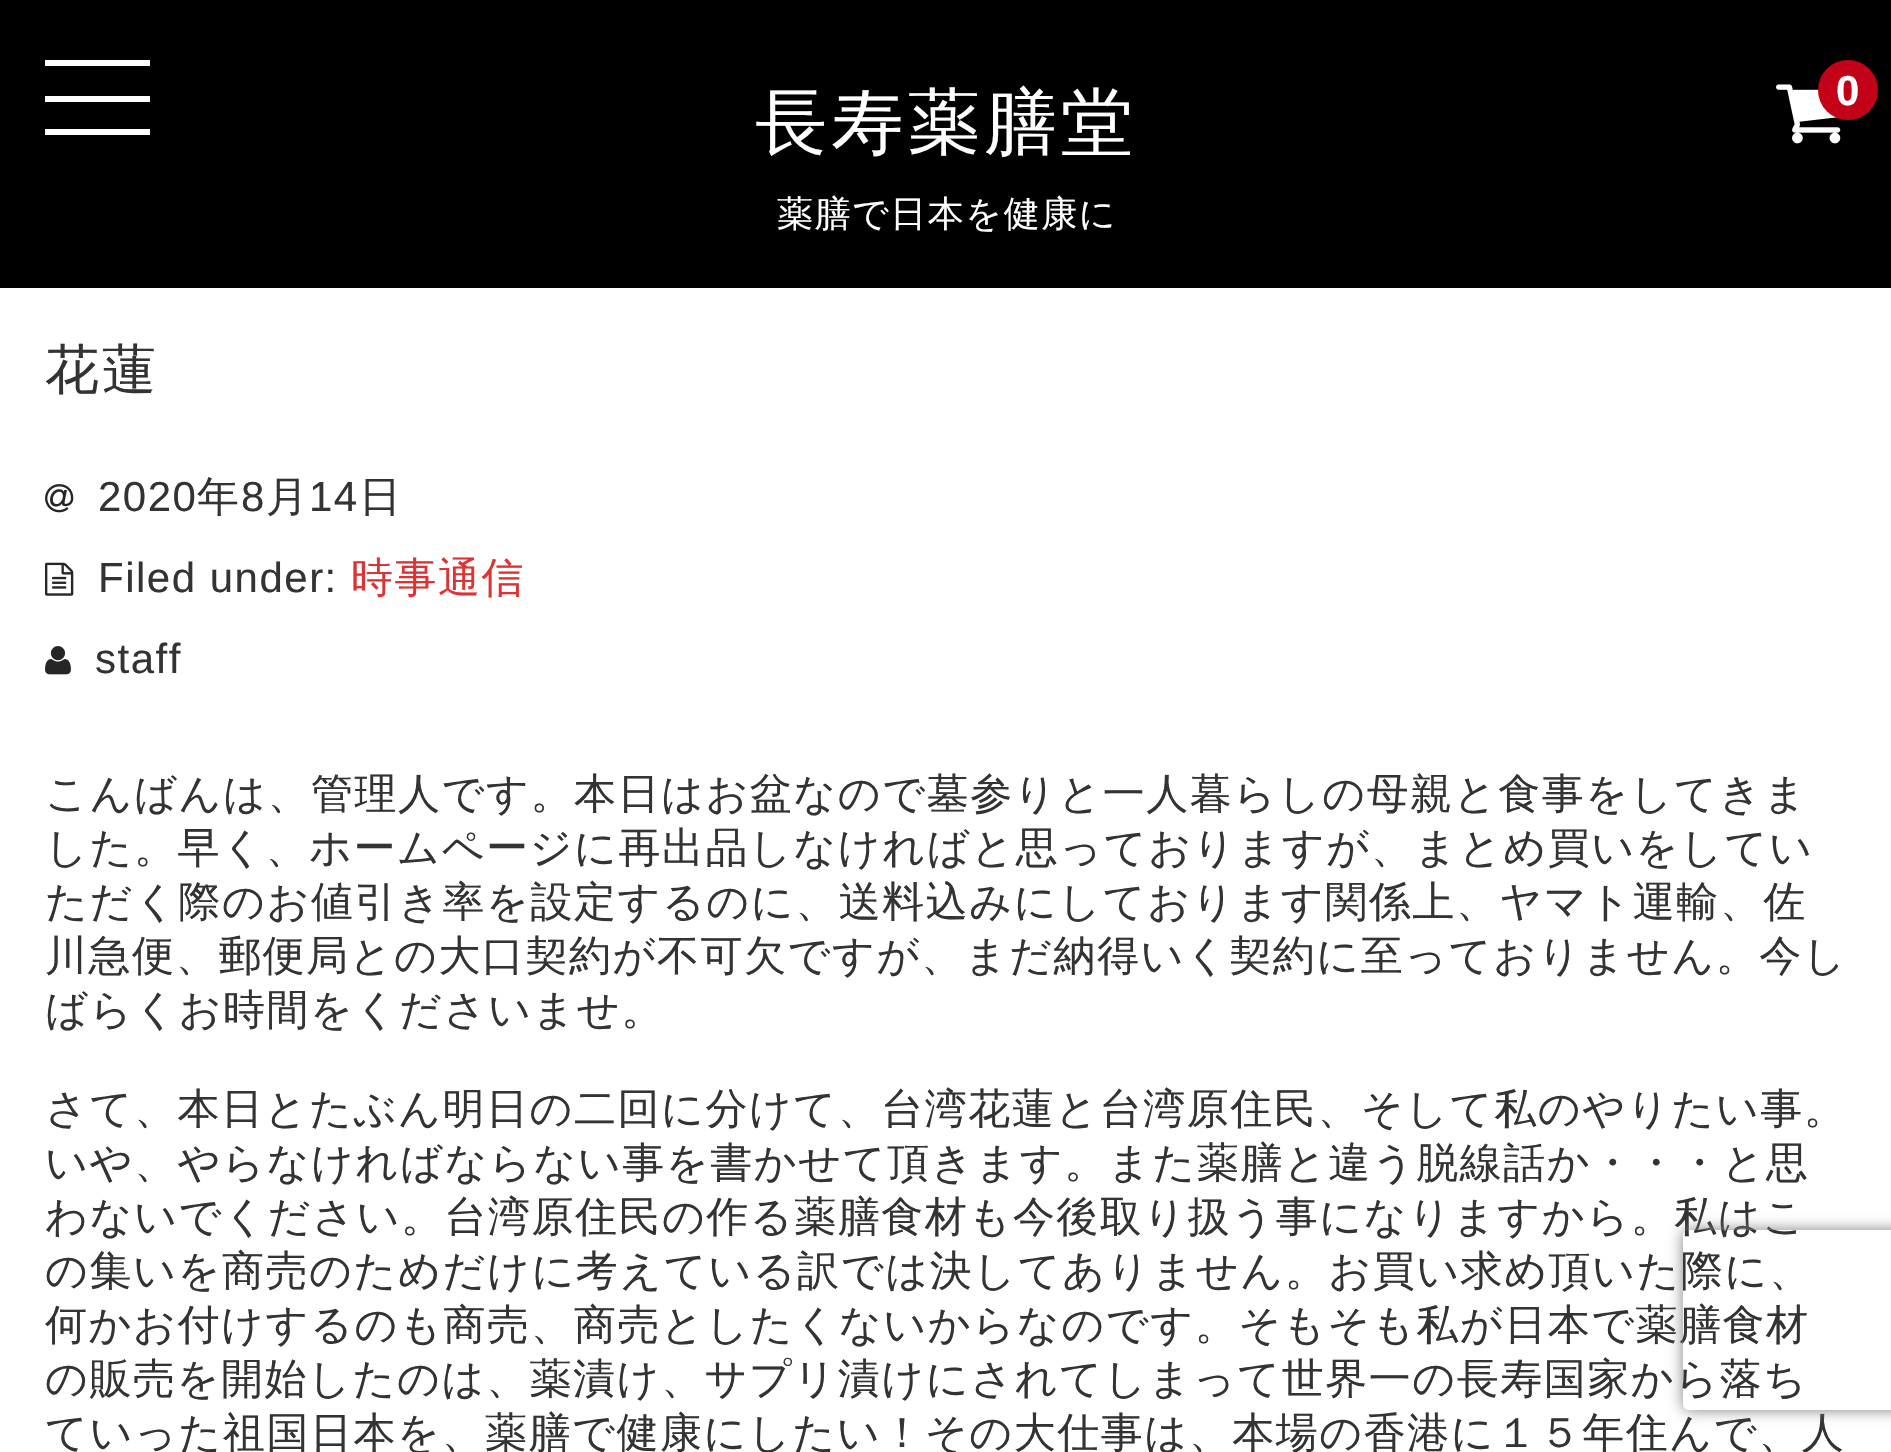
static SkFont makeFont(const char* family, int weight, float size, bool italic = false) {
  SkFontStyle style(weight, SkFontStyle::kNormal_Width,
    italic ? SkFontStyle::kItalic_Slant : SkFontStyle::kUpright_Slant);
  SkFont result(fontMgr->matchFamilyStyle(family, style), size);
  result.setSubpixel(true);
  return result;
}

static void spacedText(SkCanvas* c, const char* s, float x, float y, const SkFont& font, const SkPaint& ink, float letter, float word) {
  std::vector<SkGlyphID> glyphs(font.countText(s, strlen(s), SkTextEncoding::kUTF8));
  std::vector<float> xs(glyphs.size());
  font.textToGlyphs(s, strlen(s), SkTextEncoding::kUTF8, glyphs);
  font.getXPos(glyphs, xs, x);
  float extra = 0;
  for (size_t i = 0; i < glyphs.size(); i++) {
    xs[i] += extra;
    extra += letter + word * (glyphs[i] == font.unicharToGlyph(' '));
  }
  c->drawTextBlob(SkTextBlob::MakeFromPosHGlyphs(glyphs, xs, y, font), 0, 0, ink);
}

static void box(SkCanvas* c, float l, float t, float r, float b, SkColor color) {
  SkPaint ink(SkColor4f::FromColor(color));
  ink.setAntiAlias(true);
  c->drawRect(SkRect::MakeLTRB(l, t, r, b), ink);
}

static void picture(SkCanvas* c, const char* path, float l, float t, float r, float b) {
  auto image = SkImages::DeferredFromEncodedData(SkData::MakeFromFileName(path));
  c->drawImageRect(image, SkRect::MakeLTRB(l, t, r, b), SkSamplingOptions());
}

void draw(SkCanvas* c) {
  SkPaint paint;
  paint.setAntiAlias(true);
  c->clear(0xffffffff);
  box(c, 0, 0, 1891, 288, 0xff000000);
  SkFont face1 = makeFont("WenQuanYi Zen Hei", 500, 72);
  paint.setColor(0xffffffff);
  spacedText(c, "長寿薬膳堂", 755, 147, face1, paint, 4.5f, 0);
  SkFont face2 = makeFont("WenQuanYi Zen Hei", 500, 36);
  spacedText(c, "薬膳で日本を健康に", 777, 226, face2, paint, 1.5f, 0);
  box(c, 45, 60, 150, 66, 0xffffffff);
  box(c, 45, 96, 150, 102, 0xffffffff);
  box(c, 45, 129, 150, 135, 0xffffffff);
  picture(c, "img_01.png", 1776, 84, 1841, 144);
  paint.setColor(0xffc30118);
  c->drawCircle(1848, 90, 30, paint);
  SkFont face3 = makeFont("Liberation Sans", 700, 42);
  paint.setColor(0xffffffff);
  spacedText(c, "0", 1836, 105, face3, paint, 1.5f, 0);
  SkFont face4 = makeFont("WenQuanYi Zen Hei", 500, 54);
  paint.setColor(0xff333333);
  spacedText(c, "花蓮", 45, 388, face4, paint, 3, 0);
  picture(c, "img_02.png", 45, 484, 74, 513);
  SkFont face5 = makeFont("Liberation Sans", 400, 42);
  spacedText(c, "2020", 98, 511, face5, paint, 1.5f, 0);
  SkFont face6 = makeFont("WenQuanYi Zen Hei", 500, 42);
  spacedText(c, "年", 197, 511, face6, paint, 1.5f, 0);
  spacedText(c, "8", 241, 511, face5, paint, 1.5f, 0);
  spacedText(c, "月", 266, 511, face6, paint, 1.5f, 0);
  spacedText(c, "14", 309, 511, face5, paint, 1.5f, 0);
  spacedText(c, "日", 359, 511, face6, paint, 1.5f, 0);
  picture(c, "img_03.png", 45, 562, 74, 596);
  spacedText(c, "Filed under:", 98, 592, face5, paint, 1.5f, 0);
  paint.setColor(0xffdd3333);
  spacedText(c, "時事通信", 351, 592, face6, paint, 1.5f, 0);
  picture(c, "img_04.png", 45, 646, 71, 675);
  paint.setColor(0xff333333);
  spacedText(c, "staff", 95, 673, face5, paint, 1.5f, 0);
  spacedText(c, "こんばんは、管理人です。本日はお盆なので墓参りと一人暮らしの母親と食事をしてきま", 45, 808, face6, paint, 1.5f, 0);
  spacedText(c, "した。早く、ホームページに再出品しなければと思っておりますが、まとめ買いをしてい", 45, 862, face6, paint, 1.5f, 0);
  spacedText(c, "ただく際のお値引き率を設定するのに、送料込みにしております関係上、ヤマト運輸、佐", 45, 916, face6, paint, 1.5f, 0);
  spacedText(c, "川急便、郵便局との大口契約が不可欠ですが、まだ納得いく契約に至っておりません。今し", 45, 970, face6, paint, 1.5f, 0);
  spacedText(c, "ばらくお時間をくださいませ。", 45, 1024, face6, paint, 1.5f, 0);
  spacedText(c, "さて、本日とたぶん明日の二回に分けて、台湾花蓮と台湾原住民、そして私のやりたい事。", 45, 1123, face6, paint, 1.5f, 0);
  spacedText(c, "いや、やらなければならない事を書かせて頂きます。また薬膳と違う脱線話か・・・と思", 45, 1177, face6, paint, 1.5f, 0);
  spacedText(c, "わないでください。台湾原住民の作る薬膳食材も今後取り扱う事になりますから。私はこ", 45, 1231, face6, paint, 1.5f, 0);
  spacedText(c, "の集いを商売のためだけに考えている訳では決してありません。お買い求め頂いた際に、", 45, 1285, face6, paint, 1.5f, 0);
  spacedText(c, "何かお付けするのも商売、商売としたくないからなのです。そもそも私が日本で薬膳食材", 45, 1339, face6, paint, 1.5f, 0);
  spacedText(c, "の販売を開始したのは、薬漬け、サプリ漬けにされてしまって世界一の長寿国家から落ち", 45, 1393, face6, paint, 1.5f, 0);
  spacedText(c, "ていった祖国日本を、薬膳で健康にしたい！その大仕事は、本場の香港に１５年住んで、人", 45, 1447, face6, paint, 1.5f, 0);
  c->save();
  c->clipPath(SkPathBuilder(SkPathFillType::kEvenOdd).moveTo(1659, 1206).lineTo(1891, 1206).lineTo(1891, 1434).lineTo(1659, 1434).close().moveTo(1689, 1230).lineTo(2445, 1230).cubicTo(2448.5f, 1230, 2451, 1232.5f, 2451, 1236).lineTo(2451, 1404).cubicTo(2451, 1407.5f, 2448.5f, 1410, 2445, 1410).lineTo(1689, 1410).cubicTo(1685.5f, 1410, 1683, 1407.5f, 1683, 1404).lineTo(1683, 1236).cubicTo(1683, 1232.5f, 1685.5f, 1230, 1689, 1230).close().detach(), true);
  paint.setColor(0xff808080);
  paint.setMaskFilter(SkMaskFilter::MakeBlur(kNormal_SkBlurStyle, 7.5f));
  c->drawRoundRect(SkRect::MakeLTRB(1683, 1230, 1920, 1410), 6, 6, paint);
  paint.setMaskFilter(nullptr);
  c->restore();
}
